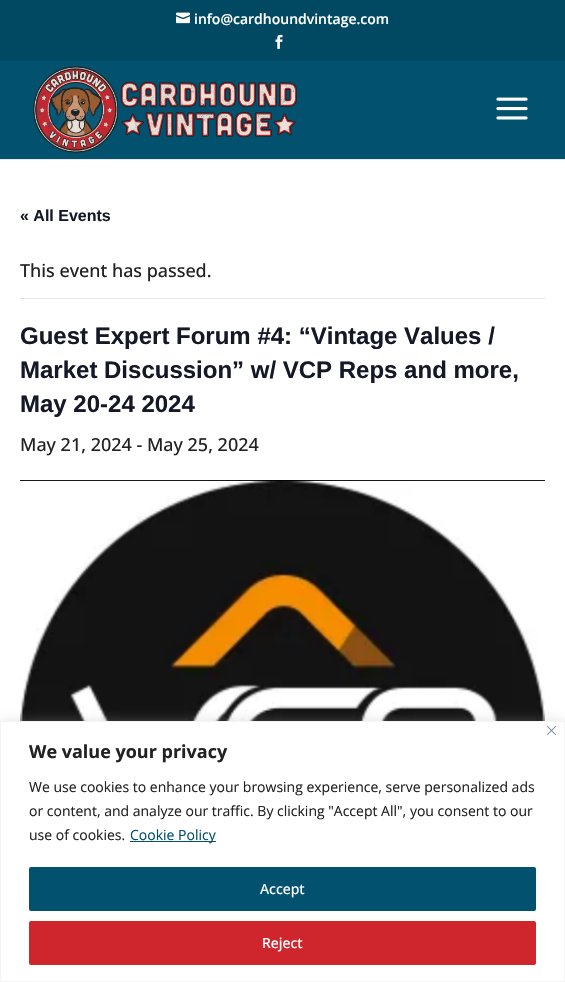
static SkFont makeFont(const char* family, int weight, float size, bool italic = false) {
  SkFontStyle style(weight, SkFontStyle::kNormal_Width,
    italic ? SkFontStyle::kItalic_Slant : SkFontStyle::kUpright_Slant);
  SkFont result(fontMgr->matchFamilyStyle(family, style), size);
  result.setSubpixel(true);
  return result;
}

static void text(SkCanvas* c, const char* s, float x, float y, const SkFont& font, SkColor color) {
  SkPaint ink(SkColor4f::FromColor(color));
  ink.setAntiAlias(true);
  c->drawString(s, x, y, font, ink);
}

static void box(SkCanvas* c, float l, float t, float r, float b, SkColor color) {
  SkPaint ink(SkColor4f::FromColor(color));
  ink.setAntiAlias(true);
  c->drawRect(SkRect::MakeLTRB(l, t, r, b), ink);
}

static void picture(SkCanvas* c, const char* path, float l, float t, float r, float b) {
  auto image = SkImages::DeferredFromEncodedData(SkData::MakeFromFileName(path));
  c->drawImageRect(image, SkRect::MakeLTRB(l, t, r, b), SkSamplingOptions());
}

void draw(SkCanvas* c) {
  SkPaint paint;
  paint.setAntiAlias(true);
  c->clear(0xffffffff);
  box(c, 0, 0, 565, 61, 0xff014963);
  picture(c, "img_01.png", 176, 12, 190, 24);
  SkFont face1 = makeFont("Open Sans", 600, 14);
  text(c, "info@cardhoundvintage.com", 194, 24, face1, 0xffffffff);
  picture(c, "img_02.png", 275, 34, 283, 49);
  box(c, 0, 159, 565, 160, 0xffe6e6e6);
  box(c, 0, 61, 565, 159, 0xff02516e);
  picture(c, "img_03.png", 33, 66, 297, 153);
  picture(c, "img_04.png", 496, 97, 528, 120);
  SkFont face2 = makeFont("Liberation Sans", 700, 16);
  text(c, "« All Events", 20, 221, face2, 0xff141827);
  box(c, 20, 298, 545, 299, 0xffe4e4e4);
  SkFont face3 = makeFont("Open Sans", 500, 18);
  text(c, "This event has passed.", 20, 277, face3, 0xff222222);
  SkFont face4 = makeFont("Liberation Sans", 700, 24);
  text(c, "Guest Expert Forum #4: “Vintage Values /", 20, 344, face4, 0xff141827);
  text(c, "Market Discussion” w/ VCP Reps and more,", 20, 378, face4, 0xff141827);
  text(c, "May 20-24 2024", 20, 412, face4, 0xff141827);
  text(c, "May 21, 2024 - May 25, 2024", 20, 451, face3, 0xff222222);
  picture(c, "img_05.png", 20, 480, 545, 721);
  paint.setColor(0x4dacabab);
  paint.setMaskFilter(SkMaskFilter::MakeBlur(kNormal_SkBlurStyle, 5));
  c->drawRect(SkRect::MakeLTRB(0, 720, 565, 981), paint);
  paint.setMaskFilter(nullptr);
  paint.setColor(0xffffffff);
  c->drawRect(SkRect::MakeLTRB(0.5f, 721.5f, 564.5f, 981.5f), paint);
  paint.setStyle(SkPaint::kStroke_Style);
  paint.setStrokeWidth(1);
  paint.setColor(0xfff4f4f4);
  c->drawRect(SkRect::MakeLTRB(0.5f, 721.5f, 564.5f, 981.5f), paint);
  picture(c, "img_06.png", 547, 726, 556, 735);
  SkFont face5 = makeFont("Open Sans", 700, 18);
  text(c, "We value your privacy", 29, 758, face5, 0xff222222);
  SkFont face6 = makeFont("Open Sans", 400, 14);
  text(c, "We use cookies to enhance your browsing experience, serve personalized ads", 29, 792, face6, 0xff222222);
  text(c, "or content, and analyze our traffic. By clicking \"Accept All\", you consent to our", 29, 816, face6, 0xff222222);
  text(c, "use of cookies.", 29, 840, face6, 0xff222222);
  box(c, 130, 841, 216, 842, 0xff02516e);
  text(c, "Cookie Policy", 130, 840, face6, 0xff02516e);
  paint.setStyle(SkPaint::kFill_Style);
  paint.setColor(0xff02516e);
  c->drawRoundRect(SkRect::MakeLTRB(30, 868, 535, 910), 1, 1, paint);
  paint.setStyle(SkPaint::kStroke_Style);
  paint.setStrokeWidth(2);
  c->drawRoundRect(SkRect::MakeLTRB(30, 868, 535, 910), 1, 1, paint);
  SkFont face7 = makeFont("Open Sans", 500, 14);
  text(c, "Accept", 260, 894, face7, 0xffffffff);
  paint.setStyle(SkPaint::kFill_Style);
  paint.setColor(0xffce262c);
  c->drawRoundRect(SkRect::MakeLTRB(30, 922, 535, 964), 1, 1, paint);
  paint.setStyle(SkPaint::kStroke_Style);
  c->drawRoundRect(SkRect::MakeLTRB(30, 922, 535, 964), 1, 1, paint);
  text(c, "Reject", 262, 948, face7, 0xffffffff);
}
